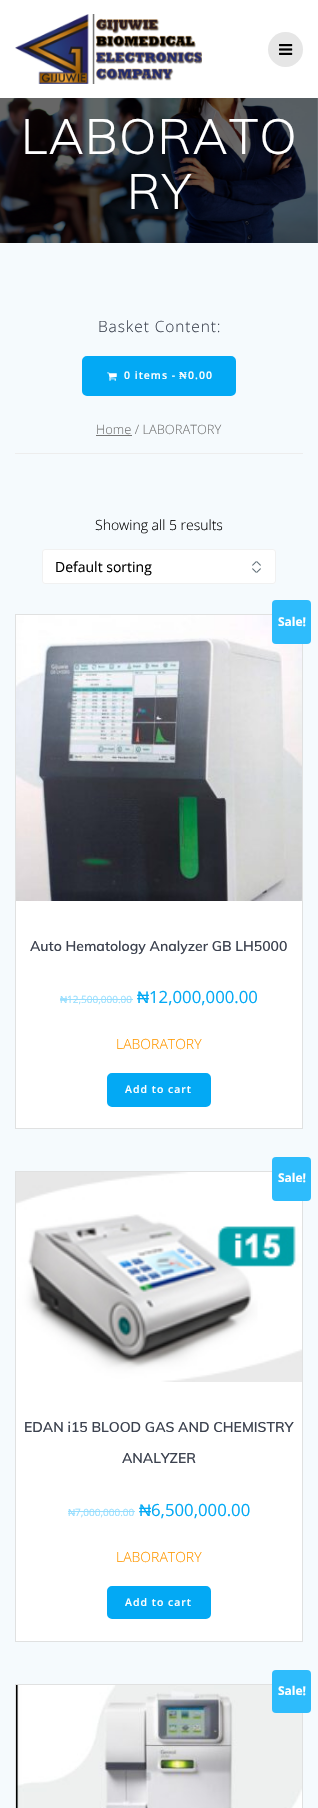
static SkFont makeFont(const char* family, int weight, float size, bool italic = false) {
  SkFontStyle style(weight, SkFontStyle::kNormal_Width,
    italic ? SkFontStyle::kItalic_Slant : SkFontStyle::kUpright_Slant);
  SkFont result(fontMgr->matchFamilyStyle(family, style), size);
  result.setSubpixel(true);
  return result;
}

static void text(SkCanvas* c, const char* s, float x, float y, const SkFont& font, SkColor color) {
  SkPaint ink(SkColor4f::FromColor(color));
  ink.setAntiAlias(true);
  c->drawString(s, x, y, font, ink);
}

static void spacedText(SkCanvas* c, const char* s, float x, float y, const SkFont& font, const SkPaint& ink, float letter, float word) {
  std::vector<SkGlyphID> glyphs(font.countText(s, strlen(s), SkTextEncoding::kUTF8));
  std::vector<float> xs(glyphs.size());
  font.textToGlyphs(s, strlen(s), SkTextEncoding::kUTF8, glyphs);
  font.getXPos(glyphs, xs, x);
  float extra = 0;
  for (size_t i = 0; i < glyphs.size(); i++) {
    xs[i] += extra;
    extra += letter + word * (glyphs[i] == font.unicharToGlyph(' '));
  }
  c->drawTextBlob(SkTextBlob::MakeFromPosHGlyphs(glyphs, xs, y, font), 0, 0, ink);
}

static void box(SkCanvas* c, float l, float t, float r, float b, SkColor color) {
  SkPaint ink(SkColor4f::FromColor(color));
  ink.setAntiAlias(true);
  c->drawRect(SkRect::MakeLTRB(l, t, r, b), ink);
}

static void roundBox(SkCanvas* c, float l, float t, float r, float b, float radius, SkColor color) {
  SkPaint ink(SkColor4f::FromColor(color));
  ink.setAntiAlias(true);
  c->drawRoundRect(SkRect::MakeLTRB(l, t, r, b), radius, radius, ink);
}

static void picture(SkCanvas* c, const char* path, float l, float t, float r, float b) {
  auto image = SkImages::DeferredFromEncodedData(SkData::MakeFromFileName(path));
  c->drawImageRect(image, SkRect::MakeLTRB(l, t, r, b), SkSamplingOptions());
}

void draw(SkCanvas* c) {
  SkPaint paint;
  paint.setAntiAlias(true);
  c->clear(0xfff5fafd);
  box(c, 0, 0, 318, 98, 0xffffffff);
  picture(c, "img_01.png", 15, 14, 202, 84);
  paint.setColor(0xffe6e6e6);
  c->drawCircle(285.5f, 49.5f, 17.5f, paint);
  picture(c, "img_02.png", 279, 44, 293, 55);
  picture(c, "img_03.png", 0, 98, 318, 243);
  SkFont face1 = makeFont("Muli", 300, 49);
  paint.setColor(0xffffffff);
  spacedText(c, "LABORATO", 21, 154, face1, paint, 1, 0);
  spacedText(c, "RY", 127, 209, face1, paint, 1, 0);
  box(c, 15, 453, 303, 454, 0xffededed);
  SkFont face2 = makeFont("Open Sans", 300, 15.5f);
  paint.setColor(0xff3c424f);
  spacedText(c, "Basket Content:", 98, 332, face2, paint, 0.9f, 0);
  paint.setColor(0xff03a9f4);
  c->drawRoundRect(SkRect::MakeLTRB(83, 357, 235, 395), 4, 4, paint);
  paint.setStyle(SkPaint::kStroke_Style);
  paint.setStrokeWidth(2);
  c->drawRoundRect(SkRect::MakeLTRB(83, 357, 235, 395), 4, 4, paint);
  picture(c, "img_04.png", 107, 372, 117, 381);
  SkFont face3 = makeFont("Open Sans", 600, 10.5f);
  paint.setStyle(SkPaint::kFill_Style);
  paint.setColor(0xffffffff);
  spacedText(c, "0 items -", 124, 379, face3, paint, 1, 0);
  SkFont face4 = makeFont("Liberation Serif", 700, 10.5f);
  spacedText(c, "₦", 179, 379, face4, paint, 1, 0);
  spacedText(c, "0.00", 188, 379, face3, paint, 1, 0);
  SkFont face5 = makeFont("Open Sans", 300, 12.9f);
  text(c, "Home / LABORATORY", 96, 434, face5, 0xff767676);
  box(c, 96, 435, 132, 436, 0xff767676);
  SkFont face6 = makeFont("Open Sans", 300, 14);
  text(c, "Showing all 5 results", 95, 530, face6, 0xff000000);
  roundBox(c, 42, 549, 276, 584, 3, 0xffffffff);
  picture(c, "img_05.png", 252, 561, 261, 573);
  paint.setStyle(SkPaint::kStroke_Style);
  paint.setStrokeWidth(1);
  paint.setColor(0xfff1f1f1);
  c->drawRoundRect(SkRect::MakeLTRB(42.5f, 549.5f, 275.5f, 583.5f), 2.5f, 2.5f, paint);
  SkFont face7 = makeFont("Open Sans", 400, 14);
  text(c, "Default sorting", 55, 572, face7, 0xff000000);
  box(c, 16, 901, 302, 1128, 0xffffffff);
  paint.setColor(0xffe0e1e1);
  c->drawRect(SkRect::MakeLTRB(15.5f, 614.5f, 302.5f, 1128.5f), paint);
  picture(c, "img_06.png", 16, 615, 302, 901);
  roundBox(c, 272, 600, 311, 644, 4, 0xff2ebcfc);
  SkFont face8 = makeFont("Open Sans", 700, 12);
  text(c, "Sale!", 278, 626, face8, 0xffffffff);
  SkFont face9 = makeFont("Muli", 600, 14);
  text(c, "Auto Hematology Analyzer GB LH5000", 30, 951, face9, 0xff3c424f);
  SkFont face10 = makeFont("Liberation Sans", 400, 10);
  text(c, "₦", 60, 1003, face10, 0xff97defe);
  box(c, 60, 999, 67, 1000, 0xff97defe);
  box(c, 67, 999, 133, 1000, 0xff97defe);
  SkFont face11 = makeFont("Open Sans", 400, 10);
  text(c, "12,500,000.00", 67, 1003, face11, 0xff97defe);
  SkFont face12 = makeFont("Liberation Sans", 400, 16.75f);
  text(c, "₦", 137, 1003, face12, 0xff03a9f4);
  SkFont face13 = makeFont("Open Sans", 400, 16.75f);
  text(c, "12,000,000.00", 149, 1003, face13, 0xff03a9f4);
  text(c, "LABORATORY", 116, 1049, face6, 0xffff9800);
  paint.setStyle(SkPaint::kFill_Style);
  paint.setColor(0xff03a9f4);
  c->drawRoundRect(SkRect::MakeLTRB(108, 1074, 210, 1106), 4, 4, paint);
  paint.setStyle(SkPaint::kStroke_Style);
  paint.setStrokeWidth(2);
  c->drawRoundRect(SkRect::MakeLTRB(108, 1074, 210, 1106), 4, 4, paint);
  paint.setStyle(SkPaint::kFill_Style);
  paint.setColor(0xffffffff);
  spacedText(c, "Add to cart", 125, 1093, face3, paint, 1, 0);
  box(c, 16, 1382, 302, 1641, 0xffffffff);
  paint.setStyle(SkPaint::kStroke_Style);
  paint.setStrokeWidth(1);
  paint.setColor(0xffe0e1e1);
  c->drawRect(SkRect::MakeLTRB(15.5f, 1171.5f, 302.5f, 1641.5f), paint);
  picture(c, "img_07.png", 16, 1172, 302, 1382);
  roundBox(c, 272, 1157, 311, 1201, 4, 0xff2ebcfc);
  text(c, "Sale!", 278, 1182, face8, 0xffffffff);
  text(c, "EDAN i15 BLOOD GAS AND CHEMISTRY", 24, 1432, face9, 0xff3c424f);
  text(c, "ANALYZER", 122, 1463, face9, 0xff3c424f);
  text(c, "₦", 68, 1516, face10, 0xff97defe);
  box(c, 68, 1511, 75, 1512, 0xff97defe);
  box(c, 75, 1511, 135, 1512, 0xff97defe);
  text(c, "7,000,000.00", 75, 1516, face11, 0xff97defe);
  text(c, "₦", 139, 1516, face12, 0xff03a9f4);
  text(c, "6,500,000.00", 151, 1516, face13, 0xff03a9f4);
  text(c, "LABORATORY", 116, 1562, face6, 0xffff9800);
  paint.setStyle(SkPaint::kFill_Style);
  paint.setColor(0xff03a9f4);
  c->drawRoundRect(SkRect::MakeLTRB(108, 1587, 210, 1618), 4, 4, paint);
  paint.setStyle(SkPaint::kStroke_Style);
  paint.setStrokeWidth(2);
  c->drawRoundRect(SkRect::MakeLTRB(108, 1587, 210, 1618), 4, 4, paint);
  paint.setStyle(SkPaint::kFill_Style);
  paint.setColor(0xffffffff);
  spacedText(c, "Add to cart", 125, 1606, face3, paint, 1, 0);
  paint.setStyle(SkPaint::kStroke_Style);
  paint.setStrokeWidth(1);
  paint.setColor(0xffe0e1e1);
  c->drawRect(SkRect::MakeLTRB(15.5f, 1684.5f, 302.5f, 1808.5f), paint);
  picture(c, "img_08.png", 16, 1685, 302, 1808);
  roundBox(c, 272, 1670, 311, 1713, 4, 0xff2ebcfc);
  text(c, "Sale!", 278, 1695, face8, 0xffffffff);
}
